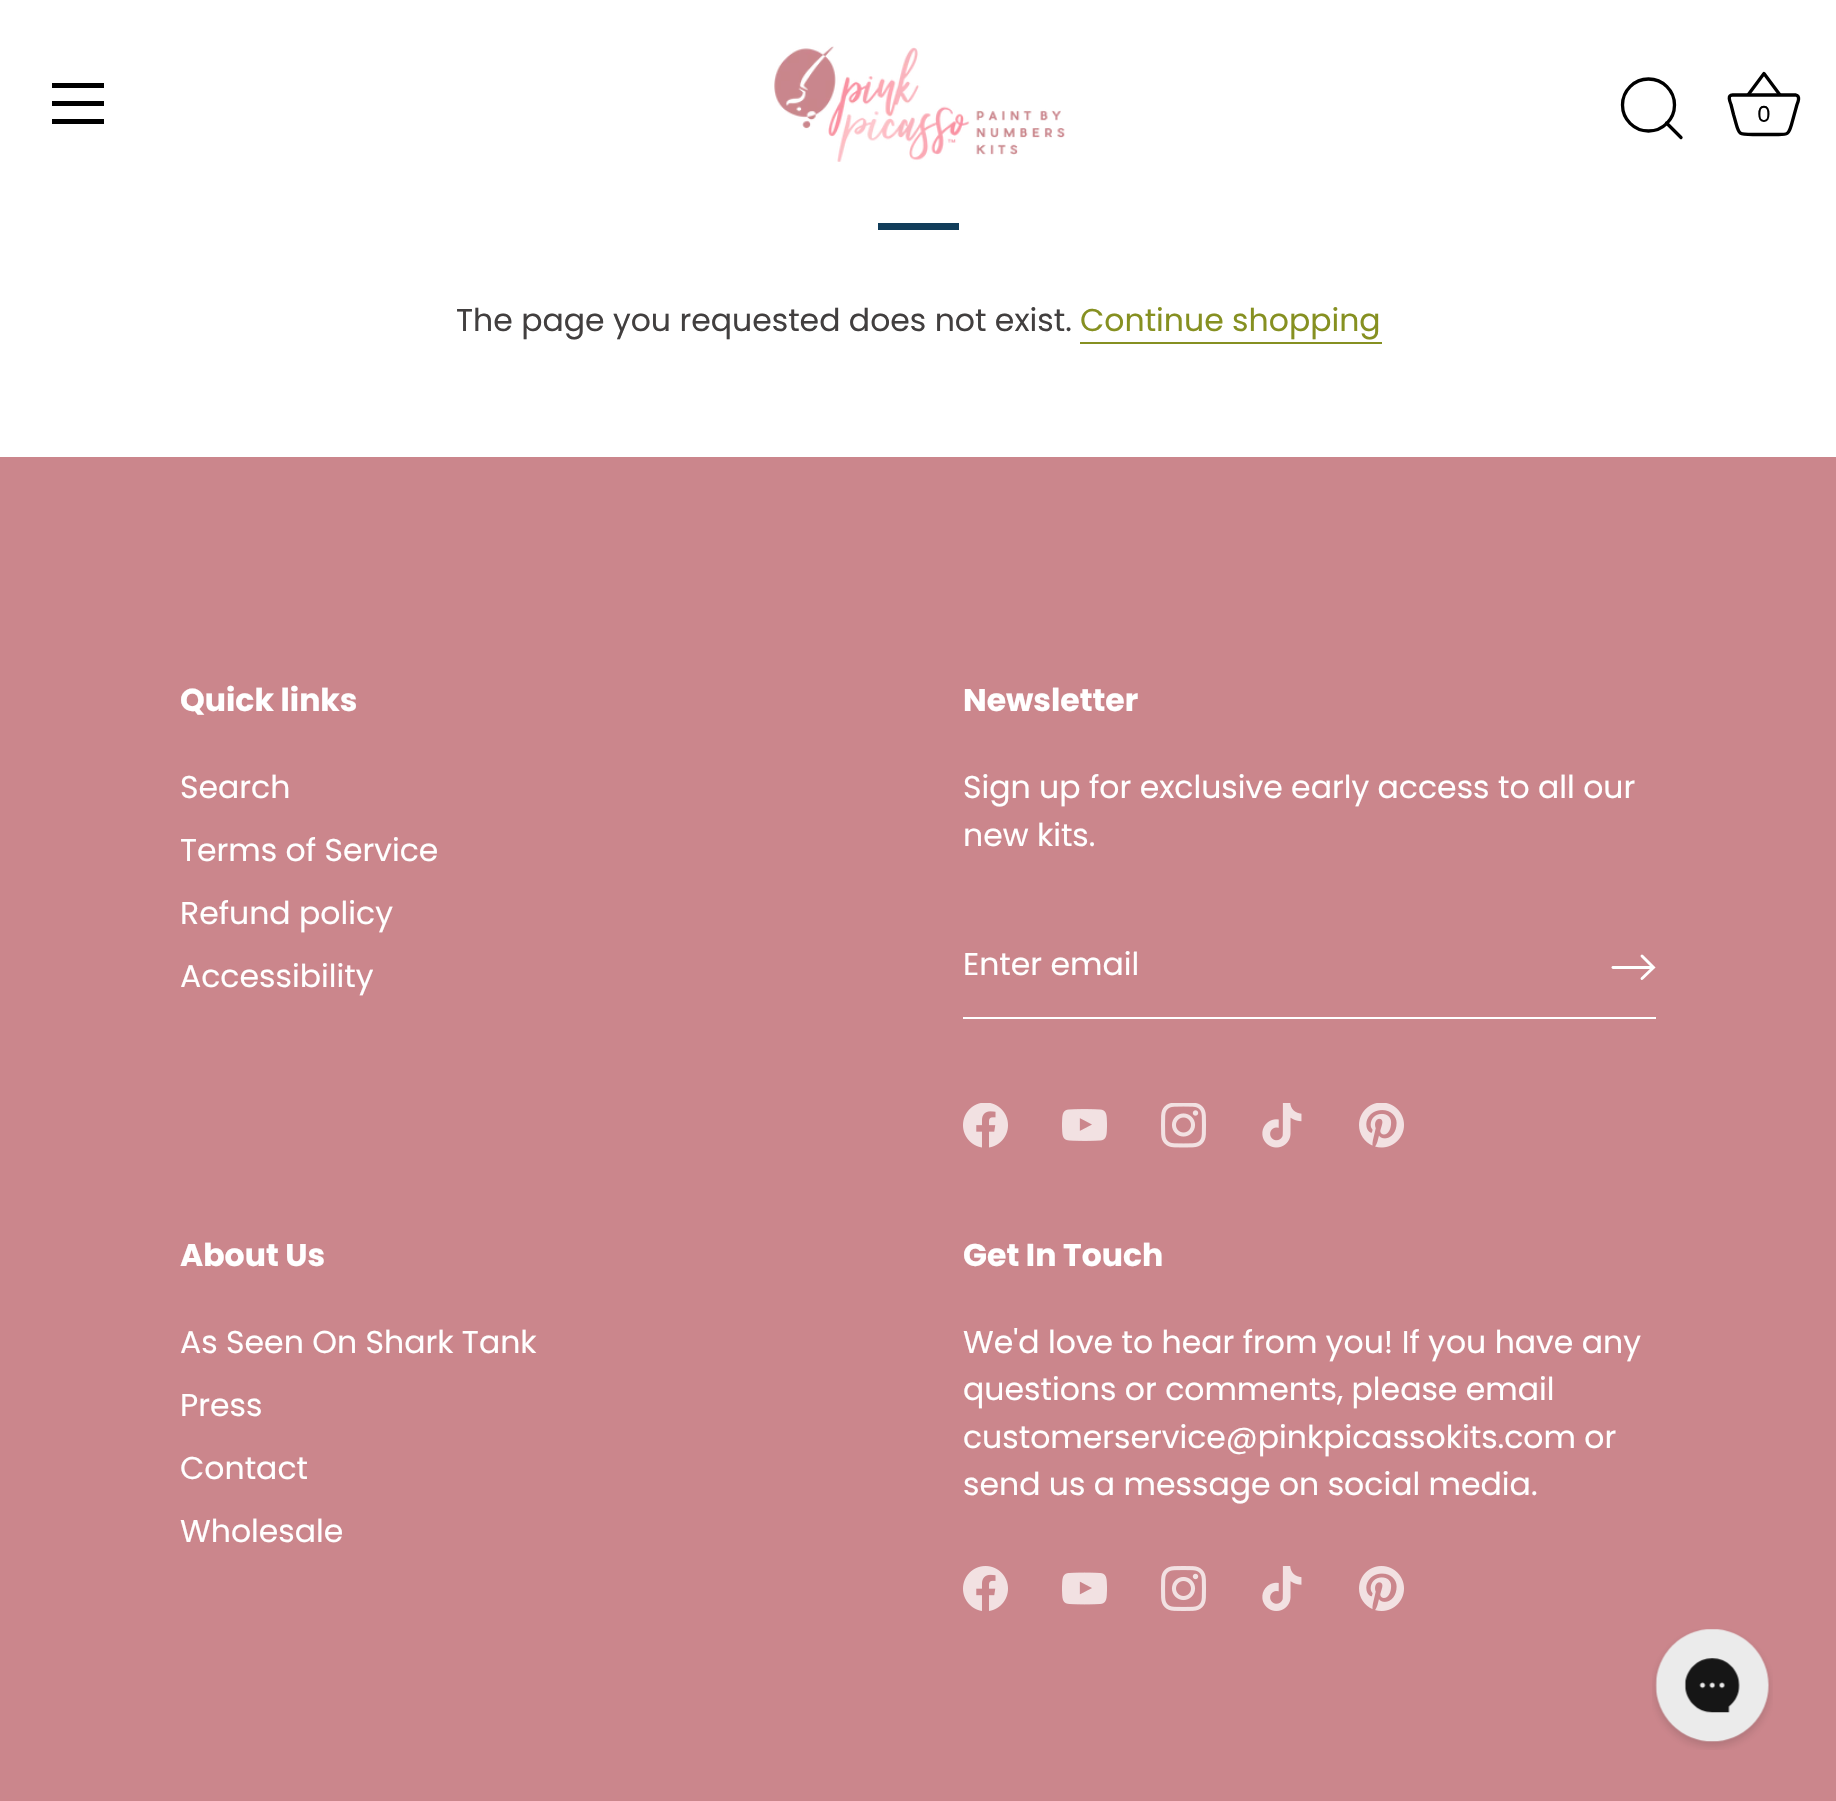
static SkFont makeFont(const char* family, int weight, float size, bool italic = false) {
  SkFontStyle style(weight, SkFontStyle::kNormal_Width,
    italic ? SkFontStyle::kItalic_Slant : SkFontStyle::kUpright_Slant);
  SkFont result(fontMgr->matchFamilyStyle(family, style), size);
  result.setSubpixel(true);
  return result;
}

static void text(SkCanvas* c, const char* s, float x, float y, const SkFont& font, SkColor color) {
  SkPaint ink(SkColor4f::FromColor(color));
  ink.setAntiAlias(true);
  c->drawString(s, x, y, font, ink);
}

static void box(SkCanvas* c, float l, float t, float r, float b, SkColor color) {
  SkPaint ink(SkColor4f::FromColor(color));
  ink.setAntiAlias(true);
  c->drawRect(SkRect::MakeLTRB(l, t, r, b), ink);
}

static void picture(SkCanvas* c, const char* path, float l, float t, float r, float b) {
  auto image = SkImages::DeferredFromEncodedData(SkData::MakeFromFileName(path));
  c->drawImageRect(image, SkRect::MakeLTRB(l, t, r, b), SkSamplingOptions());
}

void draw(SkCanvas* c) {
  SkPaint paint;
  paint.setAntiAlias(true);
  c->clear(0xffffffff);
  box(c, 52, 83, 104, 88, 0xff000000);
  box(c, 52, 101, 104, 106, 0xff000000);
  box(c, 52, 119, 104, 124, 0xff000000);
  picture(c, "img_01.png", 774, 46, 1065, 162);
  paint.setStyle(SkPaint::kStroke_Style);
  paint.setStrokeWidth(3.3f);
  paint.setColor(0xff000000);
  c->drawCircle(1648.5f, 105, 26, paint);
  paint.setStrokeCap(SkPaint::kRound_Cap);
  paint.setStrokeJoin(SkPaint::kRound_Join);
  c->drawPath(SkPathBuilder().moveTo(1681, 137.5f).lineTo(1666.5f, 123).detach(), paint);
  paint.setStrokeCap(SkPaint::kButt_Cap);
  c->drawPath(SkPathBuilder().moveTo(1732.5f, 95).cubicTo(1727, 95, 1730, 102, 1731, 104.5f).lineTo(1733.5f, 114.5f).cubicTo(1740, 136, 1735.5f, 134.5f, 1757.5f, 134.5f).lineTo(1777, 134.5f).cubicTo(1787.5f, 134.5f, 1788.5f, 135, 1791.5f, 124.5f).lineTo(1797, 104.5f).cubicTo(1798, 102, 1800.5f, 96, 1796, 95).lineTo(1732.5f, 95).detach(), paint);
  c->drawPath(SkPathBuilder().moveTo(1748, 95).lineTo(1764, 73.5f).lineTo(1780, 95).detach(), paint);
  SkFont face1 = makeFont("Poppins", 400, 22);
  text(c, "0", 1757, 122, face1, 0xff000000);
  box(c, 878, 223, 959, 230, 0xff113d5a);
  SkFont face2 = makeFont("Poppins", 400, 31.5f);
  text(c, "The page you requested does not exist.", 456, 331, face2, 0xff423f3f);
  text(c, "Continue shopping", 1080, 331, face2, 0xff869021);
  box(c, 1080, 342, 1382, 344, 0xff869021);
  box(c, 0, 457, 1836, 1801, 0xffcb868c);
  SkFont face3 = makeFont("Poppins", 700, 31.5f);
  text(c, "Quick links", 180, 711, face3, 0xffffffff);
  text(c, "Search", 180, 798, face2, 0xffffffff);
  text(c, "Terms of Service", 180, 861, face2, 0xffffffff);
  text(c, "Refund policy", 180, 924, face2, 0xffffffff);
  text(c, "Accessibility", 180, 987, face2, 0xffffffff);
  text(c, "Newsletter", 963, 711, face3, 0xffffffff);
  text(c, "Sign up for exclusive early access to all our", 963, 798, face2, 0xffffffff);
  text(c, "new kits.", 963, 846, face2, 0xffffffff);
  box(c, 963, 1017, 1656, 1019, 0xffffffff);
  text(c, "Enter email", 963, 975, face2, 0xffffffff);
  paint.setStrokeWidth(2.9f);
  paint.setStrokeCap(SkPaint::kRound_Cap);
  paint.setStrokeJoin(SkPaint::kMiter_Join);
  paint.setColor(0xffffffff);
  c->drawPath(SkPathBuilder().moveTo(1642, 978.5f).lineTo(1653.5f, 967.5f).lineTo(1642, 956).detach(), paint);
  paint.setStrokeJoin(SkPaint::kRound_Join);
  c->drawPath(SkPathBuilder().moveTo(1652, 967.5f).lineTo(1613, 967.5f).detach(), paint);
  picture(c, "img_02.png", 963, 1103, 1008, 1148);
  picture(c, "img_03.png", 1062, 1109, 1107, 1141);
  picture(c, "img_04.png", 1161, 1103, 1206, 1148);
  picture(c, "img_05.png", 1262, 1103, 1302, 1148);
  picture(c, "img_06.png", 1359, 1103, 1404, 1148);
  text(c, "About Us", 180, 1266, face3, 0xffffffff);
  text(c, "As Seen On Shark Tank", 180, 1353, face2, 0xffffffff);
  text(c, "Press", 180, 1416, face2, 0xffffffff);
  text(c, "Contact", 180, 1479, face2, 0xffffffff);
  text(c, "Wholesale", 180, 1542, face2, 0xffffffff);
  text(c, "Get In Touch", 963, 1266, face3, 0xffffffff);
  text(c, "We'd love to hear from you! If you have any", 963, 1353, face2, 0xffffffff);
  text(c, "questions or comments, please email", 963, 1400, face2, 0xffffffff);
  text(c, "customerservice@pinkpicassokits.com or", 963, 1448, face2, 0xffffffff);
  text(c, "send us a message on social media.", 963, 1495, face2, 0xffffffff);
  picture(c, "img_07.png", 963, 1566, 1008, 1611);
  picture(c, "img_08.png", 1062, 1572, 1107, 1605);
  picture(c, "img_09.png", 1161, 1566, 1206, 1611);
  picture(c, "img_10.png", 1262, 1566, 1302, 1611);
  picture(c, "img_11.png", 1359, 1566, 1404, 1611);
  picture(c, "img_12.png", 1652, 1629, 1773, 1750);
}
